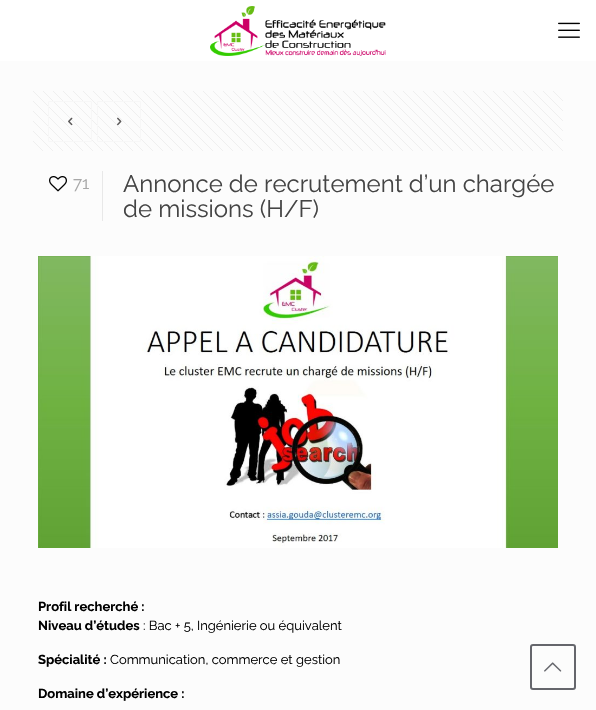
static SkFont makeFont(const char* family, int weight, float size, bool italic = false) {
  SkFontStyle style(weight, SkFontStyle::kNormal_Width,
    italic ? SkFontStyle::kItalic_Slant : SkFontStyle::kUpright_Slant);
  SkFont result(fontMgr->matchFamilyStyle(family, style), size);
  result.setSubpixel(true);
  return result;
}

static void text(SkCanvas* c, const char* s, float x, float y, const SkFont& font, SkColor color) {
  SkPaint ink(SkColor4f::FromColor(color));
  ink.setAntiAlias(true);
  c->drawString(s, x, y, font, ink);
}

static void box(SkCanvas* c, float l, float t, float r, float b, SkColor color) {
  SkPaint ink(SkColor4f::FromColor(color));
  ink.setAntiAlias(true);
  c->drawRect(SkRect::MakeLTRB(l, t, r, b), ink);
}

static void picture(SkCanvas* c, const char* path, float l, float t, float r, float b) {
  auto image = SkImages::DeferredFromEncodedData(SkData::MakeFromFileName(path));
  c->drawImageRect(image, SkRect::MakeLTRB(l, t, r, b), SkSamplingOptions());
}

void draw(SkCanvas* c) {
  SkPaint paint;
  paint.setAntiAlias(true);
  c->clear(0xfffcfcfc);
  box(c, 0, 0, 596, 61, 0xffffffff);
  picture(c, "img_01.png", 210, 6, 386, 56);
  picture(c, "img_02.png", 558, 22, 580, 38);
  picture(c, "img_03.png", 33, 91, 563, 151);
  paint.setStyle(SkPaint::kStroke_Style);
  paint.setStrokeWidth(1);
  paint.setColor(0xfff7f7f7);
  c->drawRoundRect(SkRect::MakeLTRB(48.5f, 101.5f, 91.5f, 141.5f), 0.5f, 0.5f, paint);
  picture(c, "img_04.png", 68, 117, 73, 126);
  c->drawRoundRect(SkRect::MakeLTRB(97.5f, 101.5f, 140.5f, 141.5f), 0.5f, 0.5f, paint);
  picture(c, "img_05.png", 117, 117, 122, 126);
  picture(c, "img_06.png", 49, 176, 67, 192);
  SkFont face1 = makeFont("Raleway", 400, 17);
  text(c, "71", 73, 189, face1, 0xffa8a8a8);
  box(c, 102, 171, 103, 221, 0xffe8e8e8);
  SkFont face2 = makeFont("Raleway", 400, 24);
  text(c, "Annonce de recrutement d’un chargée", 123, 192, face2, 0xff444444);
  text(c, "de missions (H/F)", 123, 217, face2, 0xff444444);
  picture(c, "img_07.png", 38, 256, 558, 548);
  SkFont face3 = makeFont("Raleway", 700, 13);
  text(c, "Profil recherché :", 38, 611, face3, 0xff000000);
  text(c, "Niveau d’études", 38, 630, face3, 0xff000000);
  SkFont face4 = makeFont("Raleway", 400, 13);
  text(c, ": Bac + 5, Ingénierie ou équivalent", 143, 630, face4, 0xff000000);
  text(c, "Spécialité :", 38, 664, face3, 0xff000000);
  text(c, "Communication, commerce et gestion", 110, 664, face4, 0xff000000);
  text(c, "Domaine d’expérience :", 38, 698, face3, 0xff000000);
  paint.setStrokeWidth(2);
  paint.setColor(0xff65666c);
  c->drawRoundRect(SkRect::MakeLTRB(531, 645, 575, 689), 2, 2, paint);
  picture(c, "img_08.png", 544, 662, 562, 672);
}
